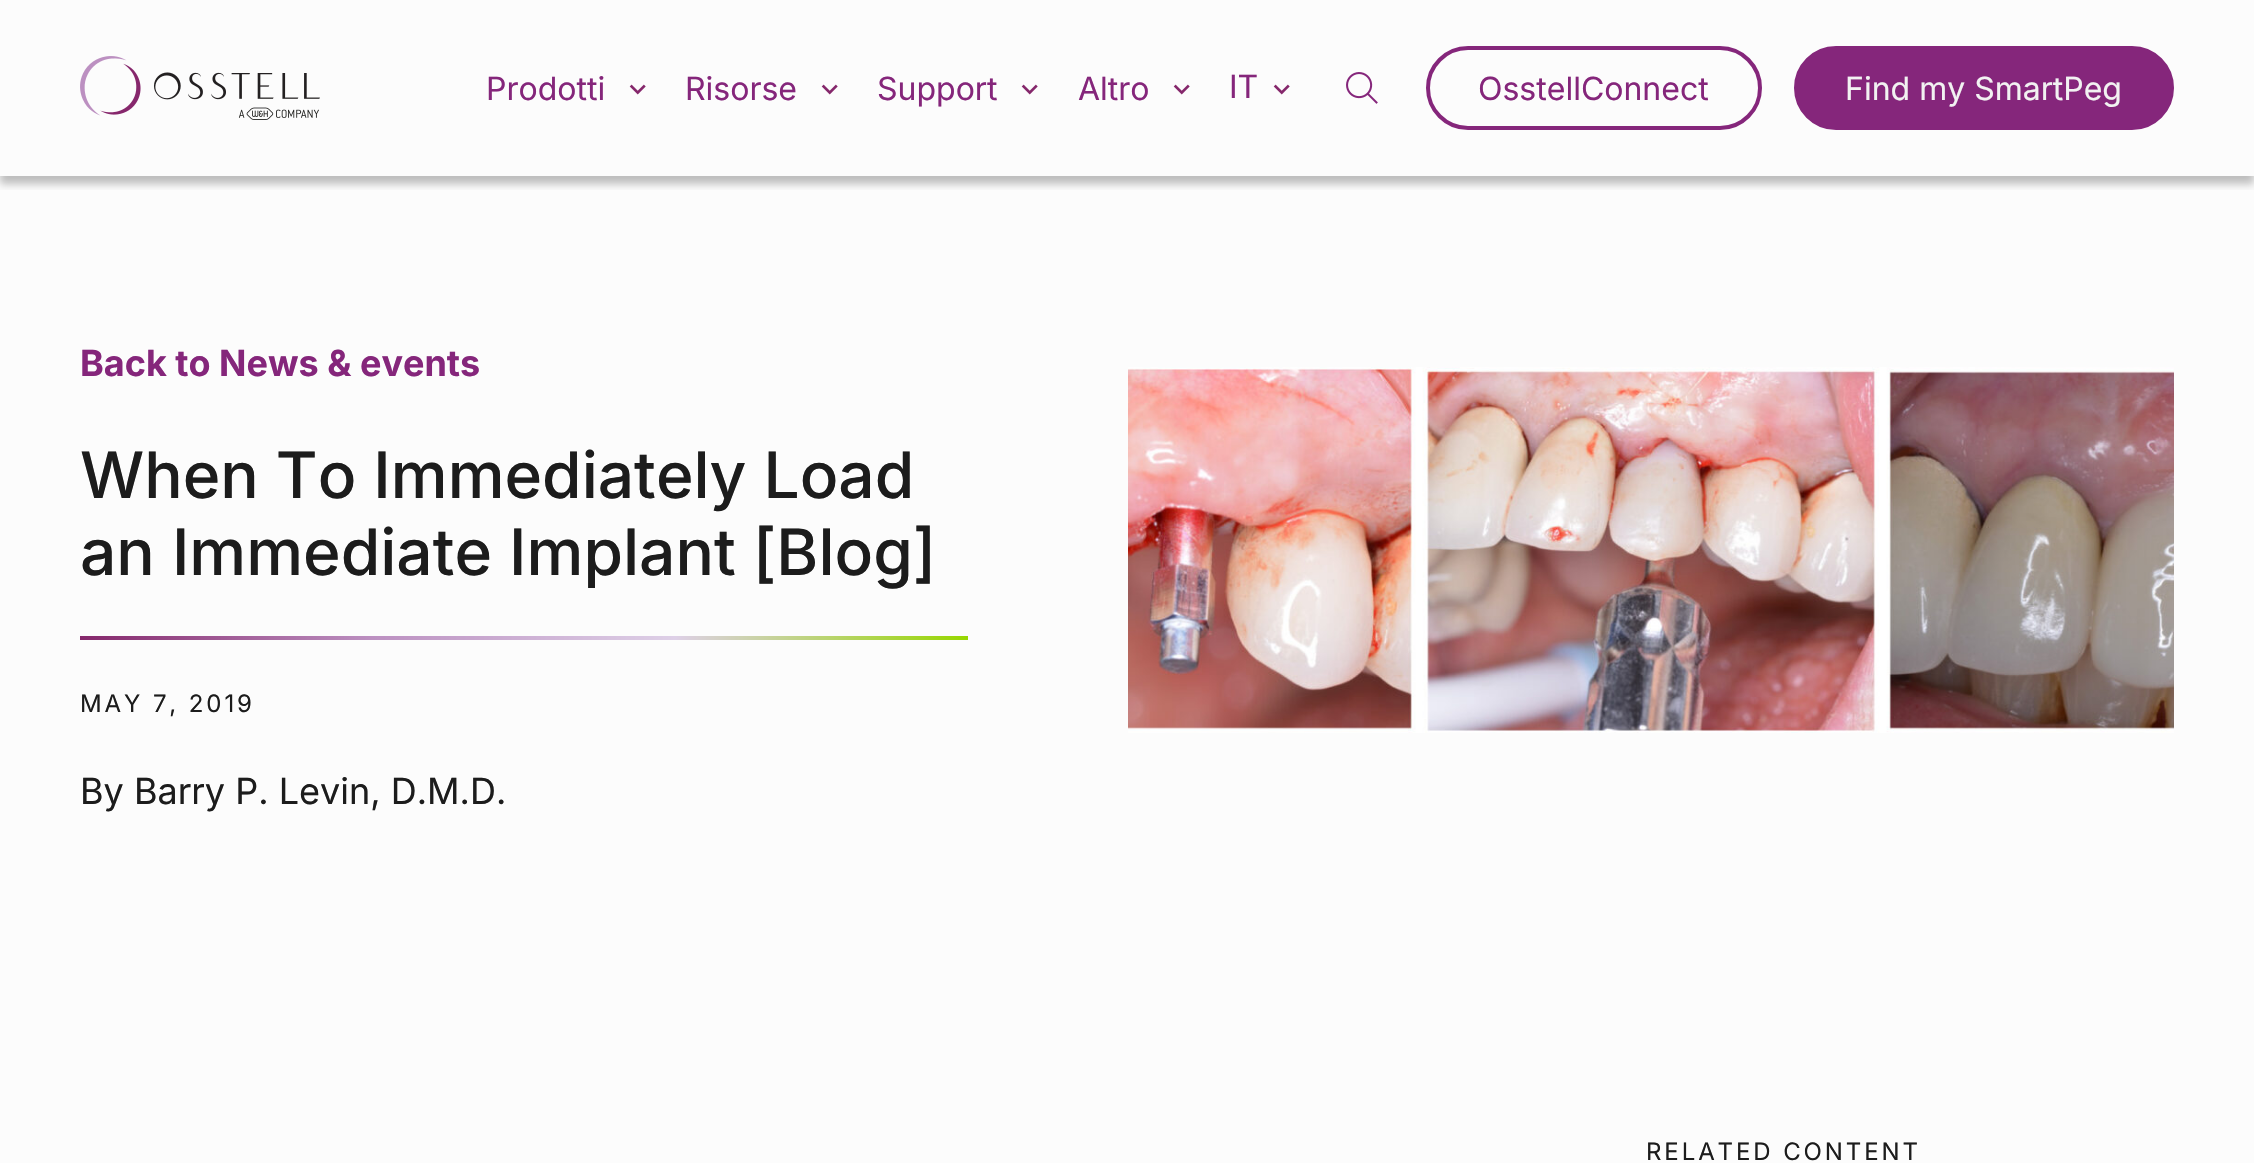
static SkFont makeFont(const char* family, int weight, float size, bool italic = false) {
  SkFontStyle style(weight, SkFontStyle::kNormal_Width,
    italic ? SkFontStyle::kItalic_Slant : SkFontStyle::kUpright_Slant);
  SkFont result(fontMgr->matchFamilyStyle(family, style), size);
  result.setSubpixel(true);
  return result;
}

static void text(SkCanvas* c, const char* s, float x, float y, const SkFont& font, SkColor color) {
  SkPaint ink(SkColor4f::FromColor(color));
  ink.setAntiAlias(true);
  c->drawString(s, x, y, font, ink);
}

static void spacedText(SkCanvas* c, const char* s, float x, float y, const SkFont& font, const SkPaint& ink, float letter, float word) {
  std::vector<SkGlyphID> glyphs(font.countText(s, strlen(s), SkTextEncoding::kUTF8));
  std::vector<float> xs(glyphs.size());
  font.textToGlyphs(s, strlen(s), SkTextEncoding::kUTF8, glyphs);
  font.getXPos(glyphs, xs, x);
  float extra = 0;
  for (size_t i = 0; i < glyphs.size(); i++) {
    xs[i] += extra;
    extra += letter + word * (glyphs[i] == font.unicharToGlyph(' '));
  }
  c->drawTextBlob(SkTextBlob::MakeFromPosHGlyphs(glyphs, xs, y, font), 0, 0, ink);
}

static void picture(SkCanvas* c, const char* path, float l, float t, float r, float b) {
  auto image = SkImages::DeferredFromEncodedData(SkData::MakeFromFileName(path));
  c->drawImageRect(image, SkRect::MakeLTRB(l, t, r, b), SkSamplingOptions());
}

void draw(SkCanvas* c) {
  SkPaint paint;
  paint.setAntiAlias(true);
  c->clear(0xfffcfcfc);
  c->save();
  c->clipRect(SkRect::MakeLTRB(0, 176, 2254, 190));
  paint.setColor(0x40000000);
  paint.setMaskFilter(SkMaskFilter::MakeBlur(kNormal_SkBlurStyle, 4));
  c->drawRect(SkRect::MakeLTRB(0, 8, 2254, 184), paint);
  paint.setMaskFilter(nullptr);
  c->restore();
  picture(c, "img_01.png", 80, 56, 320, 120);
  SkFont face1 = makeFont("Inter", 400, 32);
  text(c, "Prodotti", 486, 100, face1, 0xff85267b);
  picture(c, "img_02.png", 629, 84, 646, 95);
  text(c, "Risorse", 685, 100, face1, 0xff85267b);
  picture(c, "img_02.png", 821, 84, 838, 95);
  text(c, "Support", 877, 100, face1, 0xff85267b);
  picture(c, "img_02.png", 1021, 84, 1038, 95);
  text(c, "Altro", 1078, 100, face1, 0xff85267b);
  picture(c, "img_02.png", 1173, 84, 1190, 95);
  text(c, "IT", 1229, 98, face1, 0xff85267b);
  picture(c, "img_02.png", 1273, 84, 1290, 95);
  picture(c, "img_03.png", 1346, 72, 1378, 104);
  paint.setStyle(SkPaint::kStroke_Style);
  paint.setStrokeWidth(4);
  paint.setColor(0xff85267b);
  c->drawRoundRect(SkRect::MakeLTRB(1428, 48, 1760, 128), 40, 40, paint);
  text(c, "OsstellConnect", 1478, 100, face1, 0xff85267b);
  paint.setStyle(SkPaint::kFill_Style);
  c->drawRoundRect(SkRect::MakeLTRB(1796, 48, 2172, 128), 40, 40, paint);
  paint.setStyle(SkPaint::kStroke_Style);
  c->drawRoundRect(SkRect::MakeLTRB(1796, 48, 2172, 128), 40, 40, paint);
  text(c, "Find my SmartPeg", 1845, 100, face1, 0xfff2f2f2);
  SkFont face2 = makeFont("Inter", 700, 36);
  text(c, "Back to News & events", 80, 376, face2, 0xff85267b);
  SkFont face3 = makeFont("Inter", 500, 64);
  text(c, "When To Immediately Load", 80, 498, face3, 0xff1c1c1c);
  text(c, "an Immediate Implant [Blog]", 80, 575, face3, 0xff1c1c1c);
  paint.setStyle(SkPaint::kFill_Style);
  {
    const SkColor colors[] = {0xff85276b, 0xffbc90c1, 0xffded0e7, 0xff97d700};
    const float stops[] = {0, 0.33f, 0.67f, 1};
    const SkPoint ends[] = {{80, 638}, {968, 638}};
    paint.setShader(SkGradientShader::MakeLinear(ends, colors, stops, 4, SkTileMode::kClamp));
    paint.setAlpha(255);
  }
  c->drawRect(SkRect::MakeLTRB(80, 636, 968, 640), paint);
  SkFont face4 = makeFont("Inter", 400, 24);
  paint.setShader(nullptr);
  paint.setColor(0xff1c1c1c);
  spacedText(c, "MAY 7, 2019", 80, 712, face4, paint, 2.9f, 0);
  SkFont face5 = makeFont("Inter", 400, 36);
  text(c, "By Barry P. Levin, D.M.D.", 80, 804, face5, 0xff1c1c1c);
  picture(c, "img_04.png", 1128, 367, 2174, 733);
  spacedText(c, "RELATED CONTENT", 1646, 1160, face4, paint, 2.9f, 0);
}
